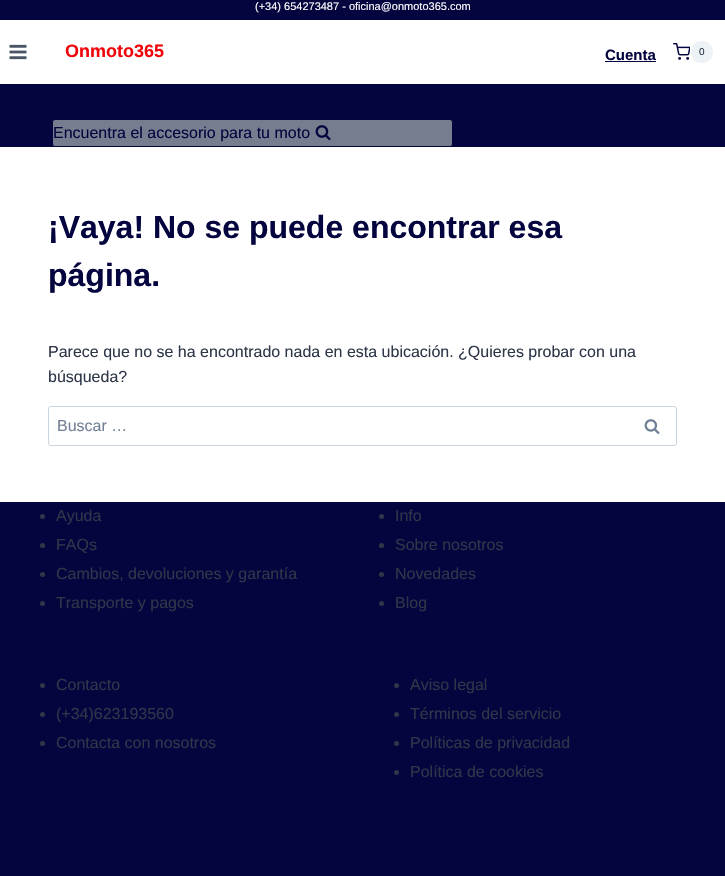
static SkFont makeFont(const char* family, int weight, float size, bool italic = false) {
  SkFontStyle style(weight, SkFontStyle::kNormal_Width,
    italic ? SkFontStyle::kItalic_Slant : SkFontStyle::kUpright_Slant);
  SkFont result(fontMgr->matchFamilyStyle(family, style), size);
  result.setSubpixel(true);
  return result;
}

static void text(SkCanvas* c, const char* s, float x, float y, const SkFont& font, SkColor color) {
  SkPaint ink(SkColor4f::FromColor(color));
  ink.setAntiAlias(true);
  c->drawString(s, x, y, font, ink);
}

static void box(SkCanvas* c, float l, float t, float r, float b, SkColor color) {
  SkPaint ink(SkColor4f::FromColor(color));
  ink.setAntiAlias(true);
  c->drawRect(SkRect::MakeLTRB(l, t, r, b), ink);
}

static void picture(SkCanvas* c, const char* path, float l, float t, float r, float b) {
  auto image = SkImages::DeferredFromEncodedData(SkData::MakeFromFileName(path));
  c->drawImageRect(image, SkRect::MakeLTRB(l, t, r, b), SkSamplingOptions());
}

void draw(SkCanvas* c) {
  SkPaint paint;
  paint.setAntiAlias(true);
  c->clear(0xffffffff);
  box(c, 0, 0, 725, 20, 0xff04043f);
  SkFont face1 = makeFont("Liberation Sans", 400, 11);
  text(c, "(+34) 654273487 - oficina@onmoto365.com", 255, 10, face1, 0xffffffff);
  picture(c, "img_01.png", 9, 44, 27, 60);
  SkFont face2 = makeFont("Liberation Sans", 700, 18);
  text(c, "Onmoto365", 65, 57, face2, 0xffef050a);
  SkFont face3 = makeFont("Liberation Sans", 700, 15);
  text(c, "Cuenta", 605, 60, face3, 0xff04043f);
  box(c, 605, 61, 656, 62, 0xff04043f);
  picture(c, "img_02.png", 673, 43, 690, 60);
  paint.setColor(0xffedf2f7);
  c->drawCircle(702, 52, 11, paint);
  SkFont face4 = makeFont("Liberation Sans", 400, 10);
  text(c, "0", 699, 55, face4, 0xff2d3748);
  box(c, 0, 84, 725, 147, 0xff04043f);
  paint.setColor(0xff767d8e);
  c->drawRoundRect(SkRect::MakeLTRB(52.5f, 119.5f, 452.5f, 146.5f), 2.5f, 2.5f, paint);
  paint.setStyle(SkPaint::kStroke_Style);
  paint.setStrokeWidth(1);
  paint.setColor(0xff04043f);
  c->drawRoundRect(SkRect::MakeLTRB(52.5f, 119.5f, 452.5f, 146.5f), 2.5f, 2.5f, paint);
  SkFont face5 = makeFont("Liberation Sans", 400, 16);
  text(c, "Encuentra el accesorio para tu moto", 53, 138, face5, 0xff04043f);
  picture(c, "img_03.png", 315, 125, 331, 140);
  SkFont face6 = makeFont("Liberation Sans", 700, 32);
  text(c, "¡Vaya! No se puede encontrar esa", 48, 238, face6, 0xff04043f);
  text(c, "página.", 48, 286, face6, 0xff04043f);
  text(c, "Parece que no se ha encontrado nada en esta ubicación. ¿Quieres probar con una", 48, 357, face5, 0xff2d3748);
  text(c, "búsqueda?", 48, 382, face5, 0xff2d3748);
  paint.setColor(0xffcbd5e0);
  c->drawRoundRect(SkRect::MakeLTRB(48.5f, 406.5f, 676.5f, 445.5f), 2.5f, 2.5f, paint);
  text(c, "Buscar …", 57, 431, face5, 0xff718096);
  picture(c, "img_04.png", 644, 419, 660, 434);
  box(c, 0, 502, 725, 876, 0xff04043f);
  paint.setStyle(SkPaint::kFill_Style);
  paint.setColor(0xff2d3748);
  c->drawCircle(42.5f, 516.5f, 2.5f, paint);
  text(c, "Ayuda", 56, 521, face5, 0xff2d3748);
  c->drawCircle(42.5f, 545.5f, 2.5f, paint);
  text(c, "FAQs", 56, 550, face5, 0xff2d3748);
  c->drawCircle(42.5f, 574.5f, 2.5f, paint);
  text(c, "Cambios, devoluciones y garantía", 56, 579, face5, 0xff2d3748);
  c->drawCircle(42.5f, 603.5f, 2.5f, paint);
  text(c, "Transporte y pagos", 56, 608, face5, 0xff2d3748);
  c->drawCircle(381.5f, 516.5f, 2.5f, paint);
  text(c, "Info", 395, 521, face5, 0xff2d3748);
  c->drawCircle(381.5f, 545.5f, 2.5f, paint);
  text(c, "Sobre nosotros", 395, 550, face5, 0xff2d3748);
  c->drawCircle(381.5f, 574.5f, 2.5f, paint);
  text(c, "Novedades", 395, 579, face5, 0xff2d3748);
  c->drawCircle(381.5f, 603.5f, 2.5f, paint);
  text(c, "Blog", 395, 608, face5, 0xff2d3748);
  c->drawCircle(42.5f, 685.5f, 2.5f, paint);
  text(c, "Contacto", 56, 690, face5, 0xff2d3748);
  c->drawCircle(42.5f, 714.5f, 2.5f, paint);
  text(c, "(+34)623193560", 56, 719, face5, 0xff2d3748);
  c->drawCircle(42.5f, 743.5f, 2.5f, paint);
  text(c, "Contacta con nosotros", 56, 748, face5, 0xff2d3748);
  c->drawCircle(396.5f, 685.5f, 2.5f, paint);
  text(c, "Aviso legal", 410, 690, face5, 0xff2d3748);
  c->drawCircle(396.5f, 714.5f, 2.5f, paint);
  text(c, "Términos del servicio", 410, 719, face5, 0xff2d3748);
  c->drawCircle(396.5f, 743.5f, 2.5f, paint);
  text(c, "Políticas de privacidad", 410, 748, face5, 0xff2d3748);
  c->drawCircle(396.5f, 772.5f, 2.5f, paint);
  text(c, "Política de cookies", 410, 777, face5, 0xff2d3748);
}
